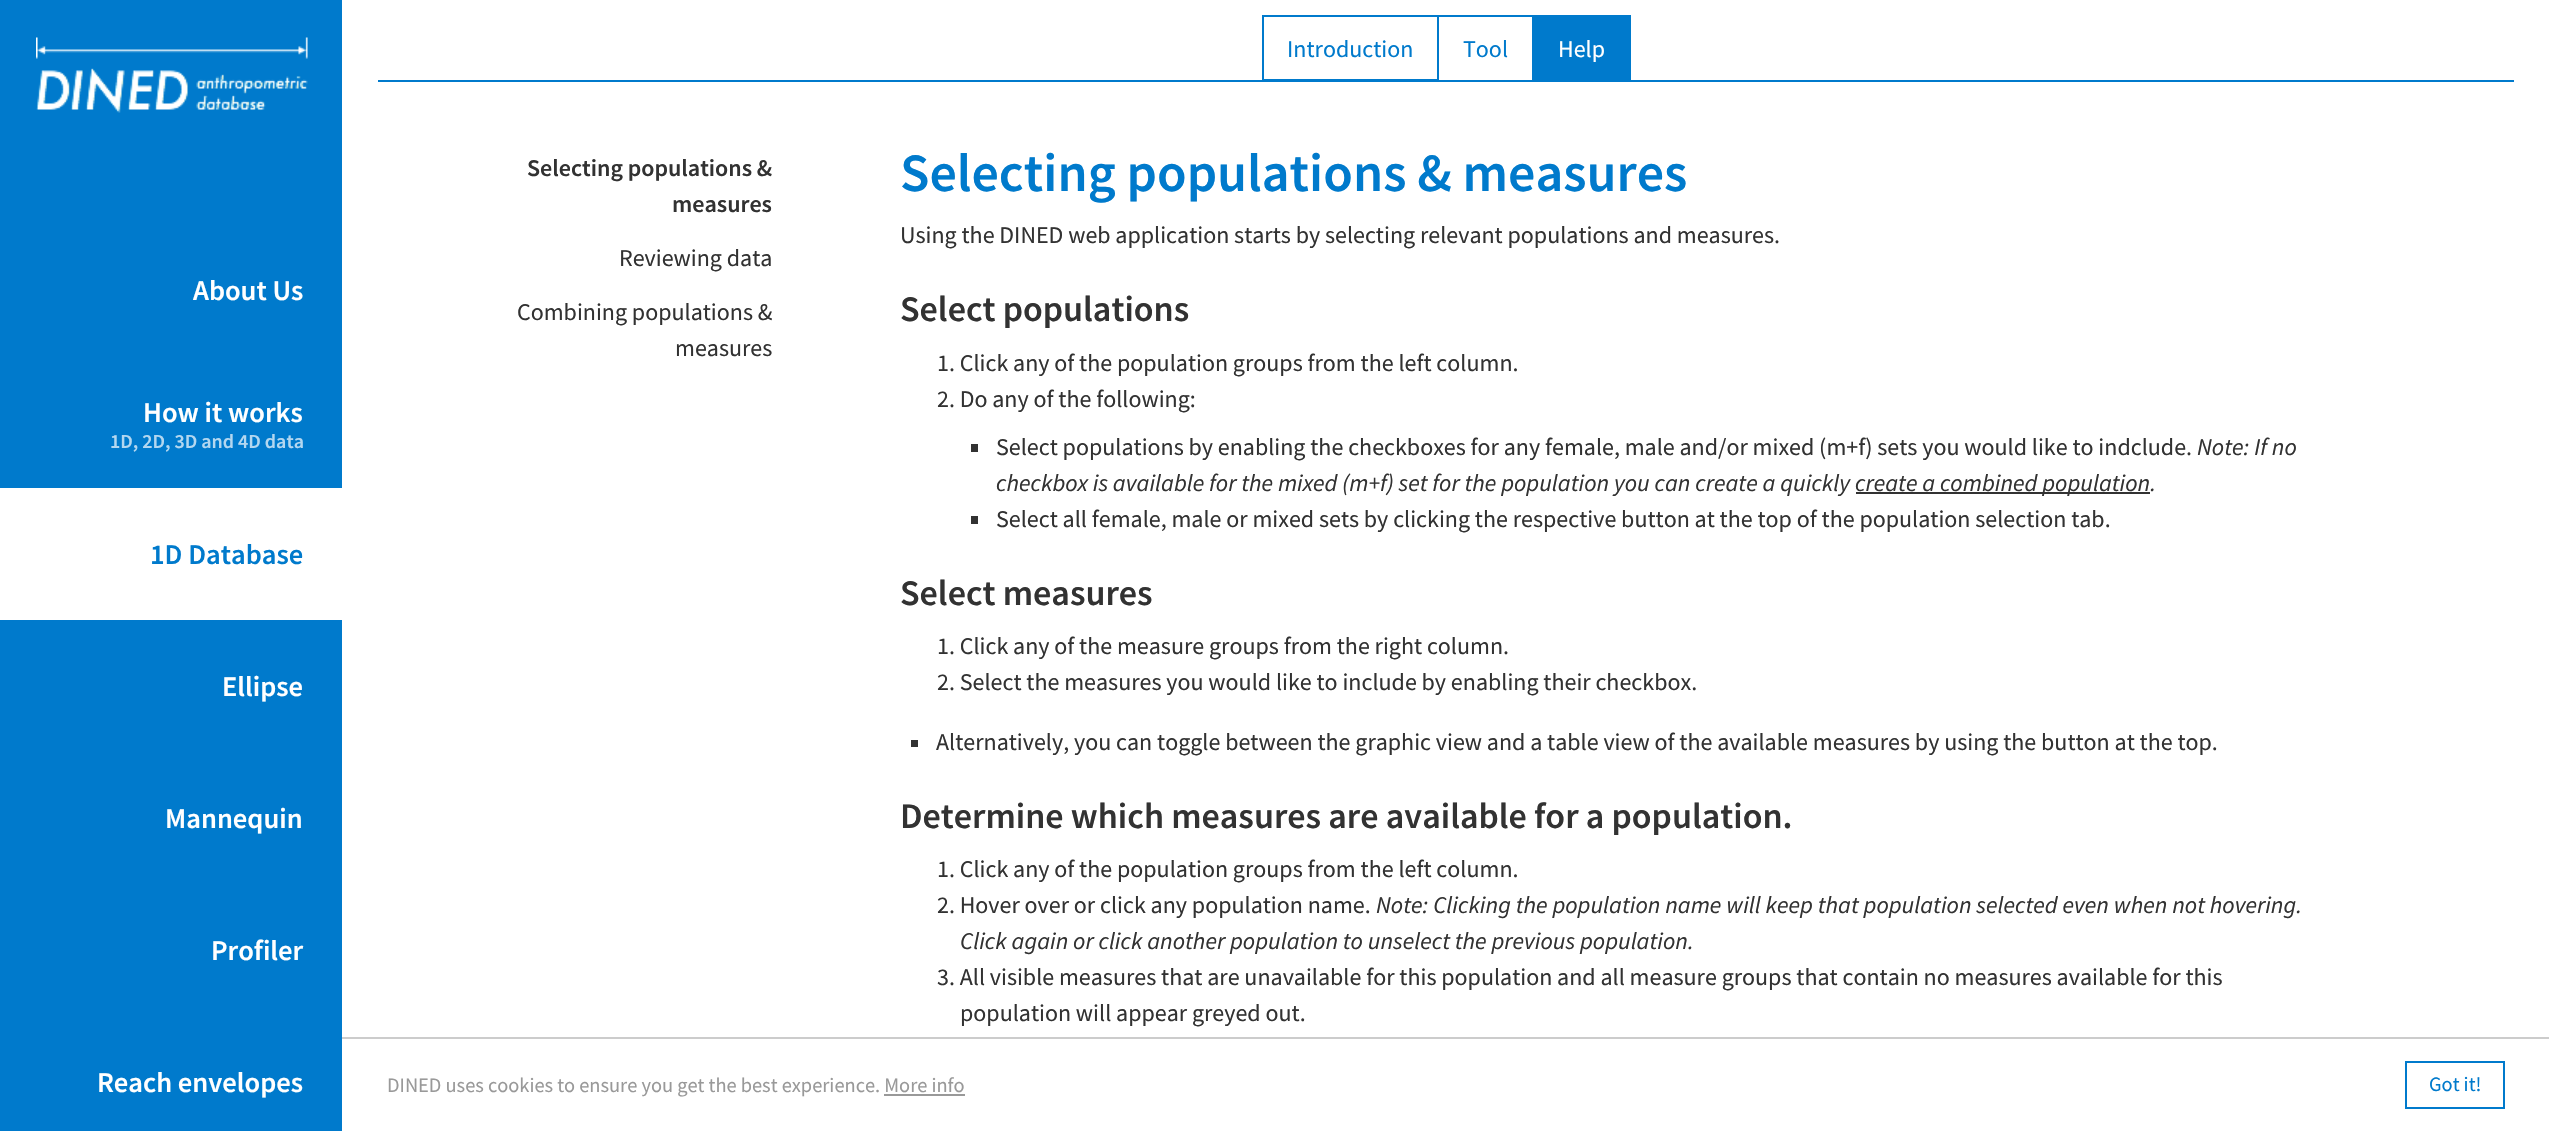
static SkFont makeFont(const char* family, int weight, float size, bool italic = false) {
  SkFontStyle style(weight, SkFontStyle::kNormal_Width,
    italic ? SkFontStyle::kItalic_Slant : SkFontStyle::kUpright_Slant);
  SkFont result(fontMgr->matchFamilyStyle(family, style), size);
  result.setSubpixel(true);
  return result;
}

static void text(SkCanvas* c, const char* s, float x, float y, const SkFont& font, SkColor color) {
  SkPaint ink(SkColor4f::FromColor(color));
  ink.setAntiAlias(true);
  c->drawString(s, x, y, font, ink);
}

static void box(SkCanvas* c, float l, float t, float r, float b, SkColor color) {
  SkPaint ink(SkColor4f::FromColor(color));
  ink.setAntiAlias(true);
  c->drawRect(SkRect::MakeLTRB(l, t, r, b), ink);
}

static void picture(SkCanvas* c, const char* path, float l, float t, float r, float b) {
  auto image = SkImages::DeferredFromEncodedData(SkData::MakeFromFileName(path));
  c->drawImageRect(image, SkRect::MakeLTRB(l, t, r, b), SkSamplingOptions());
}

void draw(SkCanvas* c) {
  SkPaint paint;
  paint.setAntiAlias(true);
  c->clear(0xffffffff);
  box(c, 0, 0, 342, 1131, 0xff007acc);
  picture(c, "img_01.png", 36, 37, 308, 113);
  SkFont face1 = makeFont("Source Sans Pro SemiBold", 600, 28.5f);
  text(c, "About Us", 193, 300, face1, 0xffffffff);
  text(c, "How it works", 143, 422, face1, 0xffffffff);
  SkFont face2 = makeFont("Source Sans Pro SemiBold", 600, 20);
  text(c, "1D, 2D, 3D and 4D data", 110, 448, face2, 0xffb3d7f0);
  box(c, 0, 488, 342, 620, 0xffffffff);
  text(c, "1D Database", 150, 564, face1, 0xff007acc);
  text(c, "Ellipse", 222, 696, face1, 0xffffffff);
  text(c, "Mannequin", 165, 828, face1, 0xffffffff);
  text(c, "Profiler", 211, 960, face1, 0xffffffff);
  text(c, "Reach envelopes", 97, 1092, face1, 0xffffffff);
  box(c, 378, 80, 2514, 82, 0xff007acc);
  paint.setStyle(SkPaint::kStroke_Style);
  paint.setStrokeWidth(2);
  paint.setColor(0xff007acc);
  c->drawRect(SkRect::MakeLTRB(1263, 16, 1438, 80), paint);
  SkFont face3 = makeFont("Source Sans Pro", 400, 24);
  text(c, "Introduction", 1287, 57, face3, 0xff007acc);
  box(c, 1439, 15, 1533, 17, 0xff007acc);
  box(c, 1532, 15, 1533, 81, 0xff007acc);
  text(c, "Tool", 1463, 57, face3, 0xff007acc);
  box(c, 1533, 15, 1631, 80, 0xff007acc);
  text(c, "Help", 1558, 57, face3, 0xffffffff);
  SkFont face4 = makeFont("Source Sans Pro SemiBold", 600, 24);
  text(c, "Selecting populations &", 527, 176, face4, 0xff323232);
  text(c, "measures", 672, 212, face4, 0xff323232);
  text(c, "Reviewing data", 619, 266, face3, 0xff323232);
  text(c, "Combining populations &", 517, 320, face3, 0xff323232);
  text(c, "measures", 675, 356, face3, 0xff323232);
  SkFont face5 = makeFont("Source Sans Pro SemiBold", 600, 54);
  text(c, "Selecting populations & measures", 900, 191, face5, 0xff007acc);
  text(c, "Using the DINED web application starts by selecting relevant populations and measures.", 900, 243, face3, 0xff323232);
  SkFont face6 = makeFont("Source Sans Pro SemiBold", 600, 36);
  text(c, "Select populations", 900, 321, face6, 0xff323232);
  text(c, "1. Click any of the population groups from the left column.", 937, 371, face3, 0xff323232);
  text(c, "2. Do any of the following:", 937, 407, face3, 0xff323232);
  box(c, 971, 444, 978, 452, 0xff323232);
  text(c, "Select populations by enabling the checkboxes for any female, male and/or mixed (m+f) sets you would like to indclude.", 996, 455, face3, 0xff323232);
  SkFont face7 = makeFont("Source Sans Pro", 400, 24, true);
  text(c, "Note: If no", 2197, 455, face7, 0xff323232);
  text(c, "checkbox is available for the mixed (m+f) set for the population you can create a quickly", 996, 491, face7, 0xff323232);
  box(c, 1856, 492, 2150, 494, 0xff323232);
  text(c, "create a combined population.", 1855, 491, face7, 0xff323232);
  box(c, 971, 516, 978, 524, 0xff323232);
  text(c, "Select all female, male or mixed sets by clicking the respective button at the top of the population selection tab.", 996, 527, face3, 0xff323232);
  text(c, "Select measures", 900, 605, face6, 0xff323232);
  text(c, "1. Click any of the measure groups from the right column.", 937, 654, face3, 0xff323232);
  text(c, "2. Select the measures you would like to include by enabling their checkbox.", 937, 690, face3, 0xff323232);
  box(c, 911, 740, 918, 747, 0xff323232);
  text(c, "Alternatively, you can toggle between the graphic view and a table view of the available measures by using the button at the top.", 936, 750, face3, 0xff323232);
  text(c, "Determine which measures are available for a population.", 900, 828, face6, 0xff323232);
  text(c, "1. Click any of the population groups from the left column.", 937, 877, face3, 0xff323232);
  text(c, "2. Hover over or click any population name.", 937, 913, face3, 0xff323232);
  text(c, "Note: Clicking the population name will keep that population selected even when not hovering.", 1376, 913, face7, 0xff323232);
  text(c, "Click again or click another population to unselect the previous population.", 960, 949, face7, 0xff323232);
  text(c, "3. All visible measures that are unavailable for this population and all measure groups that contain no measures available for this", 937, 985, face3, 0xff323232);
  text(c, "population will appear greyed out.", 960, 1021, face3, 0xff323232);
  box(c, 342, 1037, 2549, 1039, 0xffcccccc);
  SkFont face8 = makeFont("Source Sans Pro", 400, 20.4f);
  text(c, "DINED uses cookies to ensure you get the best experience. More info", 387, 1092, face8, 0xff999999);
  box(c, 884, 1094, 965, 1096, 0xff999999);
  c->drawRect(SkRect::MakeLTRB(2406, 1062, 2504, 1108), paint);
  text(c, "Got it!", 2429, 1091, face8, 0xff007acc);
}
